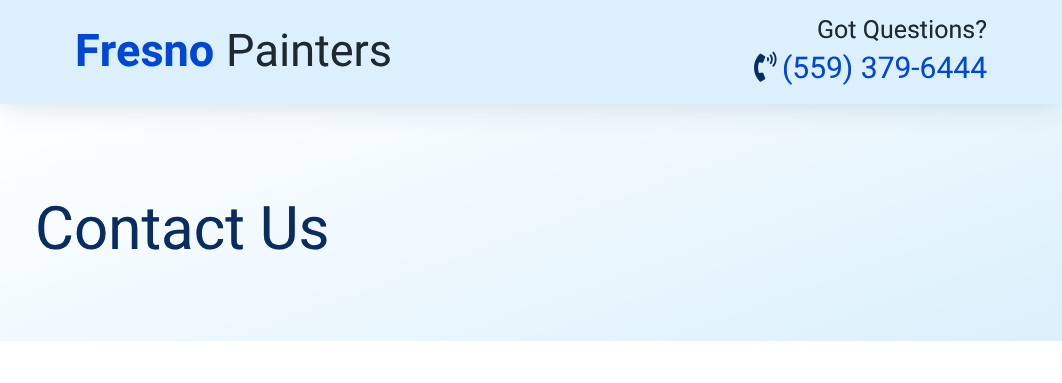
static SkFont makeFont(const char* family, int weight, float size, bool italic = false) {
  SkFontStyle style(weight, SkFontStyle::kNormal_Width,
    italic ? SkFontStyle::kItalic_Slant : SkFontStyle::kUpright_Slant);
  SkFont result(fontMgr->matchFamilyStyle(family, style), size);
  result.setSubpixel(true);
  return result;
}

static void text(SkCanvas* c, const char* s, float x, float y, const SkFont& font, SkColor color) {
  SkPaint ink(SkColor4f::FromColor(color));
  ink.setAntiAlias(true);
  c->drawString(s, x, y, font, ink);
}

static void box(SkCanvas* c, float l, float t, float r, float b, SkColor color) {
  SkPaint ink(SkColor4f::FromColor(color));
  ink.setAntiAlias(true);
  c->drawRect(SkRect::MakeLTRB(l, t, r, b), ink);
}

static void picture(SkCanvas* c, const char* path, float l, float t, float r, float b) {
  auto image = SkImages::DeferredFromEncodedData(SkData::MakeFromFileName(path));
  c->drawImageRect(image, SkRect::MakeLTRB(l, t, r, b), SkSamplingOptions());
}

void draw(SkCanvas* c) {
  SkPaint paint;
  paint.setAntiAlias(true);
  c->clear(0xffffffff);
  {
    const SkColor colors[] = {0xffffffff, 0xffdbf0fc};
    const float stops[] = {0, 1};
    const SkPoint ends[] = {{431, -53}, {631, 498}};
    paint.setShader(SkGradientShader::MakeLinear(ends, colors, stops, 2, SkTileMode::kClamp));
    paint.setAlpha(255);
  }
  c->drawRect(SkRect::MakeLTRB(0, 104, 1062, 341), paint);
  paint.setShader(nullptr);
  paint.setColor(0x2b073354);
  paint.setMaskFilter(SkMaskFilter::MakeBlur(kNormal_SkBlurStyle, 15));
  c->drawRect(SkRect::MakeLTRB(0, 0, 1062, 104), paint);
  paint.setMaskFilter(nullptr);
  box(c, 0, 0, 1062, 104, 0xffdbf0fc);
  SkFont face1 = makeFont("Heebo", 700, 45);
  text(c, "Fresno", 75, 66, face1, 0xff0047d6);
  SkFont face2 = makeFont("Heebo", 400, 45);
  text(c, "Painters", 226, 66, face2, 0xff20292f);
  SkFont face3 = makeFont("Heebo", 400, 25);
  text(c, "Got Questions?", 817, 38, face3, 0xff20292f);
  picture(c, "img_01.png", 754, 51, 777, 82);
  SkFont face4 = makeFont("Heebo", 400, 30);
  text(c, "(559) 379-6444", 782, 78, face4, 0xff0047d6);
  SkFont face5 = makeFont("Heebo", 400, 60);
  text(c, "Contact Us", 35, 249, face5, 0xff0a2d61);
}
